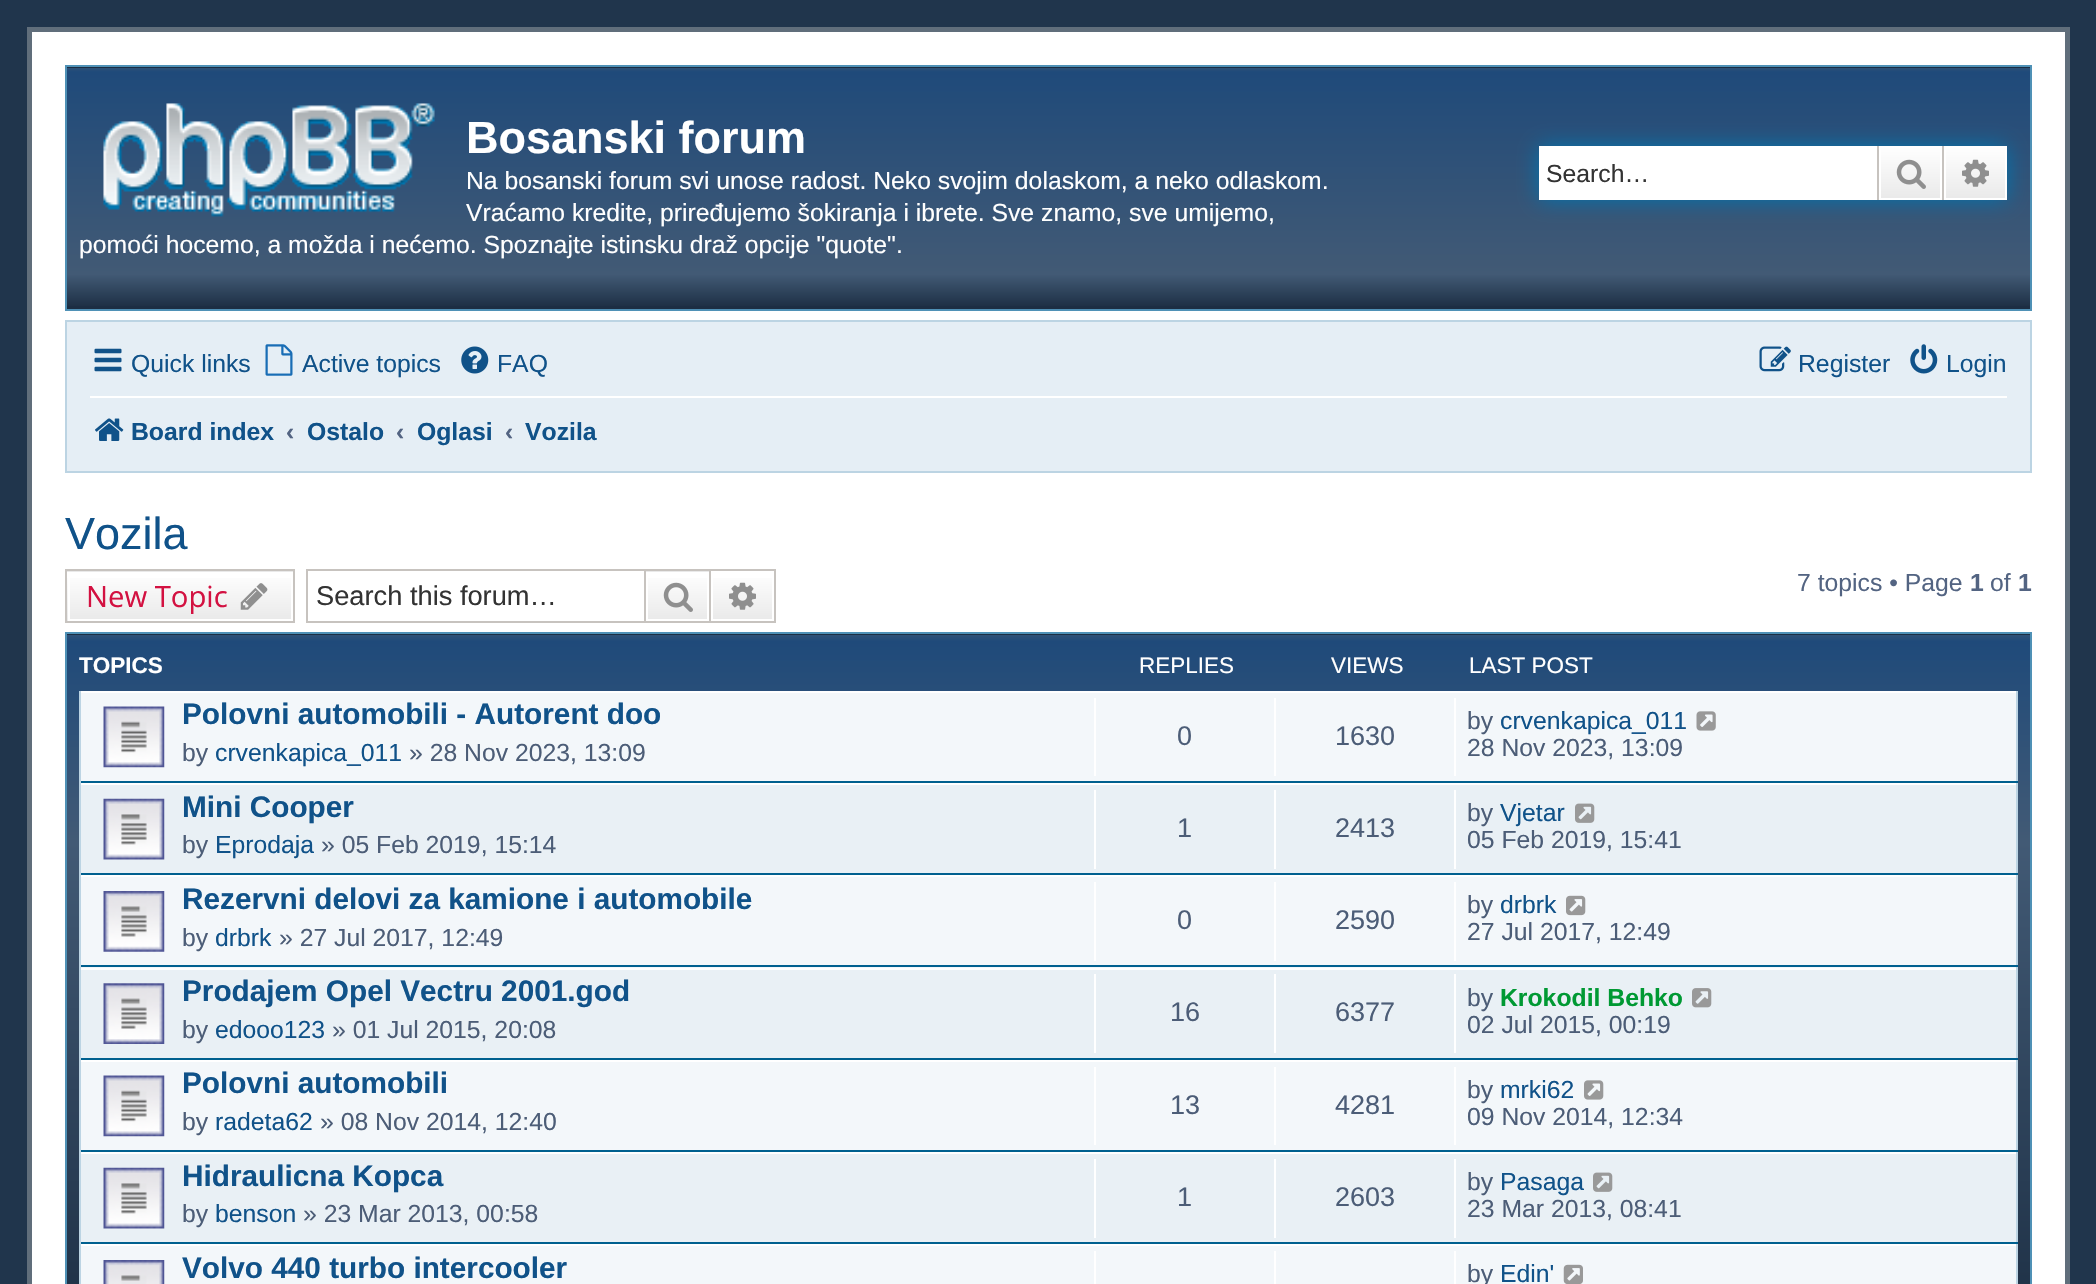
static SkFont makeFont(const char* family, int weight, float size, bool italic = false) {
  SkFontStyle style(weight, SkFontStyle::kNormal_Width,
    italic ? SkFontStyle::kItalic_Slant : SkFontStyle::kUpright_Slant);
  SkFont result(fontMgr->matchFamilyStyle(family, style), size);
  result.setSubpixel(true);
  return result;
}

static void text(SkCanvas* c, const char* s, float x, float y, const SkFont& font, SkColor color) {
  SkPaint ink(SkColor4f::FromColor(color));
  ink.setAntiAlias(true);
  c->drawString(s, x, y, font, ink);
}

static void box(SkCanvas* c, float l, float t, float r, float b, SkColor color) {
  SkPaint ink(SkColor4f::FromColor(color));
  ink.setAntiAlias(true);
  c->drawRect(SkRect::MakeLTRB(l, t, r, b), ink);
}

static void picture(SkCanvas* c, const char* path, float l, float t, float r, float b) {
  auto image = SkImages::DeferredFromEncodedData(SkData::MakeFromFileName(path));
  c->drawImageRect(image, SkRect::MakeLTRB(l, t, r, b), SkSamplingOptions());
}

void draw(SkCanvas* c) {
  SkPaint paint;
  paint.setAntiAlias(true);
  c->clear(0xff20354c);
  paint.setColor(0xffffffff);
  c->drawRect(SkRect::MakeLTRB(29.5f, 29.5f, 2067.5f, 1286.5f), paint);
  paint.setStyle(SkPaint::kStroke_Style);
  paint.setStrokeWidth(5);
  paint.setColor(0xff606e7b);
  c->drawRect(SkRect::MakeLTRB(29.5f, 29.5f, 2067.5f, 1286.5f), paint);
  box(c, 67, 67, 2030, 309, 0xff1c2e43);
  paint.setStyle(SkPaint::kFill_Style);
  {
    const SkColor colors[] = {0xff315275, 0xff1f4a7a, 0xff425a75, 0xff1c2e43};
    const float stops[] = {0, 0.02f, 0.86f, 1};
    const SkPoint ends[] = {{1049, 67}, {1049, 308}};
    paint.setShader(SkGradientShader::MakeLinear(ends, colors, stops, 4, SkTileMode::kClamp));
    paint.setAlpha(255);
  }
  c->drawRect(SkRect::MakeLTRB(67, 68, 2030, 306), paint);
  paint.setStyle(SkPaint::kStroke_Style);
  paint.setStrokeWidth(2);
  paint.setShader(nullptr);
  paint.setColor(0xff4f91b6);
  c->drawRect(SkRect::MakeLTRB(66, 66, 2031, 310), paint);
  picture(c, "img_01.png", 103, 103, 435, 217);
  SkFont face1 = makeFont("Liberation Sans", 700, 45);
  text(c, "Bosanski forum", 466, 153, face1, 0xffffffff);
  SkFont face2 = makeFont("Liberation Sans", 400, 24.75f);
  text(c, "Na bosanski forum svi unose radost. Neko svojim dolaskom, a neko odlaskom.", 466, 189, face2, 0xffffffff);
  text(c, "Vraćamo kredite, priređujemo šokiranja i ibrete. Sve znamo, sve umijemo,", 466, 221, face2, 0xffffffff);
  text(c, "pomoći hocemo, a možda i nećemo. Spoznajte istinsku draž opcije \"quote\".", 79, 253, face2, 0xffffffff);
  paint.setStyle(SkPaint::kFill_Style);
  paint.setColor(0xff0075b0);
  paint.setMaskFilter(SkMaskFilter::MakeBlur(kNormal_SkBlurStyle, 11));
  c->drawRect(SkRect::MakeLTRB(1539, 146, 2007, 200), paint);
  paint.setMaskFilter(nullptr);
  box(c, 1539, 146, 1877, 200, 0xffffffff);
  text(c, "Search…", 1546, 182, face2, 0xff333333);
  {
    const SkColor colors[] = {0xffffffff, 0xffe9e9e9};
    const float stops[] = {0, 1};
    const SkPoint ends[] = {{1910, 146}, {1910, 200}};
    paint.setShader(SkGradientShader::MakeLinear(ends, colors, stops, 2, SkTileMode::kClamp));
    paint.setAlpha(255);
  }
  c->drawRect(SkRect::MakeLTRB(1881, 148, 1940, 198), paint);
  paint.setStyle(SkPaint::kStroke_Style);
  paint.setShader(nullptr);
  paint.setColor(0xffffffff);
  c->drawRect(SkRect::MakeLTRB(1880, 147, 1941, 199), paint);
  box(c, 1942, 146, 1944, 200, 0xffc7c3bf);
  box(c, 1877, 146, 1879, 200, 0xffc7c3bf);
  picture(c, "img_02.png", 1896, 159, 1926, 189);
  paint.setStyle(SkPaint::kFill_Style);
  {
    const SkColor colors[] = {0xffffffff, 0xffe9e9e9};
    const float stops[] = {0, 1};
    const SkPoint ends[] = {{1976, 146}, {1976, 200}};
    paint.setShader(SkGradientShader::MakeLinear(ends, colors, stops, 2, SkTileMode::kClamp));
    paint.setAlpha(255);
  }
  c->drawRect(SkRect::MakeLTRB(1946, 148, 2005, 198), paint);
  paint.setStyle(SkPaint::kStroke_Style);
  paint.setShader(nullptr);
  paint.setColor(0xffffffff);
  c->drawRect(SkRect::MakeLTRB(1945, 147, 2006, 199), paint);
  picture(c, "img_03.png", 1962, 159, 1989, 187);
  paint.setStyle(SkPaint::kFill_Style);
  paint.setColor(0xffe5eef5);
  c->drawRect(SkRect::MakeLTRB(66, 321, 2031, 472), paint);
  paint.setStyle(SkPaint::kStroke_Style);
  paint.setColor(0xffbcd4e3);
  c->drawRect(SkRect::MakeLTRB(66, 321, 2031, 472), paint);
  picture(c, "img_04.png", 94, 348, 122, 372);
  text(c, "Quick links", 131, 372, face2, 0xff105289);
  picture(c, "img_05.png", 265, 344, 293, 376);
  text(c, "Active topics", 302, 372, face2, 0xff105289);
  picture(c, "img_06.png", 461, 346, 489, 374);
  text(c, "FAQ", 497, 372, face2, 0xff105289);
  picture(c, "img_07.png", 1759, 346, 1791, 372);
  text(c, "Register", 1798, 372, face2, 0xff105289);
  picture(c, "img_08.png", 1910, 344, 1938, 374);
  text(c, "Login", 1946, 372, face2, 0xff105289);
  box(c, 90, 396, 2007, 398, 0xffffffff);
  picture(c, "img_09.png", 95, 418, 124, 441);
  SkFont face3 = makeFont("Liberation Sans", 700, 24.75f);
  text(c, "Board index", 131, 440, face3, 0xff105289);
  text(c, "‹", 286, 440, face3, 0xff536482);
  text(c, "Ostalo", 307, 440, face3, 0xff105289);
  text(c, "‹", 396, 440, face3, 0xff536482);
  text(c, "Oglasi", 417, 440, face3, 0xff105289);
  text(c, "‹", 505, 440, face3, 0xff536482);
  text(c, "Vozila", 525, 440, face3, 0xff105289);
  SkFont face4 = makeFont("Liberation Sans", 400, 45);
  text(c, "Vozila", 65, 549, face4, 0xff105289);
  box(c, 67, 571, 293, 572, 0xffe9e9e9);
  paint.setStyle(SkPaint::kFill_Style);
  {
    const SkColor colors[] = {0xffffffff, 0xffe9e9e9};
    const float stops[] = {0, 1};
    const SkPoint ends[] = {{180, 572}, {180, 621}};
    paint.setShader(SkGradientShader::MakeLinear(ends, colors, stops, 2, SkTileMode::kClamp));
    paint.setAlpha(255);
  }
  c->drawRect(SkRect::MakeLTRB(67, 578, 291, 621), paint);
  paint.setStyle(SkPaint::kStroke_Style);
  paint.setShader(nullptr);
  paint.setColor(0xffffffff);
  c->drawRect(SkRect::MakeLTRB(69, 573, 292, 620), paint);
  paint.setColor(0xffc7c3bf);
  c->drawRect(SkRect::MakeLTRB(66, 570, 294, 622), paint);
  SkFont face5 = makeFont("Open Sans", 400, 29.25f);
  text(c, "New Topic", 86, 607, face5, 0xffd31141);
  picture(c, "img_10.png", 240, 583, 268, 610);
  box(c, 306, 569, 644, 571, 0xffc7c3bf);
  box(c, 306, 621, 644, 623, 0xffc7c3bf);
  box(c, 306, 569, 308, 623, 0xffc7c3bf);
  SkFont face6 = makeFont("Liberation Sans", 400, 27.25f);
  text(c, "Search this forum…", 316, 605, face6, 0xff333333);
  box(c, 646, 571, 709, 572, 0xffe9e9e9);
  paint.setStyle(SkPaint::kFill_Style);
  {
    const SkColor colors[] = {0xffffffff, 0xffe9e9e9};
    const float stops[] = {0, 1};
    const SkPoint ends[] = {{677, 572}, {677, 621}};
    paint.setShader(SkGradientShader::MakeLinear(ends, colors, stops, 2, SkTileMode::kClamp));
    paint.setAlpha(255);
  }
  c->drawRect(SkRect::MakeLTRB(648, 578, 707, 619), paint);
  paint.setStyle(SkPaint::kStroke_Style);
  paint.setShader(nullptr);
  paint.setColor(0xffc7c3bf);
  c->drawRect(SkRect::MakeLTRB(645, 570, 710, 622), paint);
  picture(c, "img_11.png", 663, 582, 693, 612);
  paint.setStyle(SkPaint::kFill_Style);
  {
    const SkColor colors[] = {0xffffffff, 0xffe9e9e9};
    const float stops[] = {0, 1};
    const SkPoint ends[] = {{743, 572}, {743, 621}};
    paint.setShader(SkGradientShader::MakeLinear(ends, colors, stops, 2, SkTileMode::kClamp));
    paint.setAlpha(255);
  }
  c->drawRect(SkRect::MakeLTRB(713, 578, 772, 619), paint);
  box(c, 711, 569, 776, 571, 0xffc7c3bf);
  box(c, 774, 569, 776, 623, 0xffc7c3bf);
  box(c, 711, 621, 776, 623, 0xffc7c3bf);
  picture(c, "img_12.png", 729, 582, 756, 610);
  text(c, "7 topics • Page", 1797, 591, face2, 0xff536482);
  text(c, "1", 1970, 591, face3, 0xff536482);
  text(c, "of", 1990, 591, face2, 0xff536482);
  text(c, "1", 2018, 591, face3, 0xff536482);
  box(c, 67, 634, 2030, 635, 0xff1c2e43);
  {
    const SkColor colors[] = {0xff315275, 0xff1f4a7a, 0xff425a75, 0xff1c2e43};
    const float stops[] = {0, 0.01f, 0.29f, 1};
    const SkPoint ends[] = {{1049, 634}, {1049, 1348}};
    paint.setShader(SkGradientShader::MakeLinear(ends, colors, stops, 4, SkTileMode::kClamp));
    paint.setAlpha(255);
  }
  c->drawRect(SkRect::MakeLTRB(67, 635, 2030, 1284), paint);
  paint.setStyle(SkPaint::kStroke_Style);
  paint.setShader(nullptr);
  paint.setColor(0xff4f91b6);
  c->drawRect(SkRect::MakeLTRB(66, 633, 2031, 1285), paint);
  SkFont face7 = makeFont("Liberation Sans", 700, 22.5f);
  text(c, "TOPICS", 79, 673, face7, 0xffffffff);
  SkFont face8 = makeFont("Liberation Sans", 400, 22.5f);
  text(c, "REPLIES", 1139, 673, face8, 0xffffffff);
  text(c, "VIEWS", 1331, 673, face8, 0xffffffff);
  text(c, "LAST POST", 1469, 673, face8, 0xffffffff);
  box(c, 81, 693, 2016, 781, 0xfff3f7fa);
  box(c, 79, 691, 2018, 693, 0xffffffff);
  box(c, 2016, 691, 2018, 783, 0xffbcd4e3);
  box(c, 79, 781, 2018, 783, 0xff00608f);
  box(c, 79, 691, 81, 783, 0xffbcd4e3);
  picture(c, "img_13.png", 103, 706, 165, 768);
  SkFont face9 = makeFont("Liberation Sans", 700, 29.75f);
  text(c, "Polovni automobili - Autorent doo", 182, 724, face9, 0xff105289);
  text(c, "by", 182, 761, face2, 0xff4c5d77);
  text(c, "crvenkapica_011", 215, 761, face2, 0xff105289);
  text(c, "» 28 Nov 2023, 13:09", 409, 761, face2, 0xff4c5d77);
  box(c, 1094, 698, 1096, 776, 0xffffffff);
  SkFont face10 = makeFont("Liberation Sans", 400, 27);
  text(c, "0", 1177, 745, face10, 0xff4c5d77);
  box(c, 1274, 698, 1276, 776, 0xffffffff);
  text(c, "1630", 1335, 745, face10, 0xff4c5d77);
  box(c, 1454, 698, 1456, 776, 0xffffffff);
  text(c, "by", 1467, 729, face2, 0xff4c5d77);
  text(c, "crvenkapica_011", 1500, 729, face2, 0xff105289);
  picture(c, "img_14.png", 1696, 711, 1716, 731);
  text(c, "28 Nov 2023, 13:09", 1467, 756, face2, 0xff4c5d77);
  box(c, 81, 785, 2016, 873, 0xffe9f0f5);
  box(c, 79, 783, 2018, 785, 0xffffffff);
  box(c, 2016, 783, 2018, 875, 0xffbcd4e3);
  box(c, 79, 873, 2018, 875, 0xff00608f);
  box(c, 79, 783, 81, 875, 0xffbcd4e3);
  picture(c, "img_15.png", 103, 798, 165, 860);
  text(c, "Mini Cooper", 182, 817, face9, 0xff105289);
  text(c, "by", 182, 853, face2, 0xff4c5d77);
  text(c, "Eprodaja", 215, 853, face2, 0xff105289);
  text(c, "» 05 Feb 2019, 15:14", 321, 853, face2, 0xff4c5d77);
  box(c, 1094, 790, 1096, 869, 0xffffffff);
  text(c, "1", 1177, 837, face10, 0xff4c5d77);
  box(c, 1274, 790, 1276, 869, 0xffffffff);
  text(c, "2413", 1335, 837, face10, 0xff4c5d77);
  box(c, 1454, 790, 1456, 869, 0xffffffff);
  text(c, "by", 1467, 821, face2, 0xff4c5d77);
  text(c, "Vjetar", 1500, 821, face2, 0xff105289);
  picture(c, "img_16.png", 1575, 803, 1595, 823);
  text(c, "05 Feb 2019, 15:41", 1467, 848, face2, 0xff4c5d77);
  box(c, 81, 877, 2016, 968, 0xfff3f7fa);
  box(c, 79, 875, 2018, 877, 0xffffffff);
  box(c, 2016, 875, 2018, 968, 0xffbcd4e3);
  box(c, 79, 965, 2018, 967, 0xff00608f);
  box(c, 79, 875, 81, 968, 0xffbcd4e3);
  picture(c, "img_17.png", 103, 891, 165, 952);
  text(c, "Rezervni delovi za kamione i automobile", 182, 909, face9, 0xff105289);
  text(c, "by", 182, 946, face2, 0xff4c5d77);
  text(c, "drbrk", 215, 946, face2, 0xff105289);
  text(c, "» 27 Jul 2017, 12:49", 279, 946, face2, 0xff4c5d77);
  box(c, 1094, 882, 1096, 961, 0xffffffff);
  text(c, "0", 1177, 929, face10, 0xff4c5d77);
  box(c, 1274, 882, 1276, 961, 0xffffffff);
  text(c, "2590", 1335, 929, face10, 0xff4c5d77);
  box(c, 1454, 882, 1456, 961, 0xffffffff);
  text(c, "by", 1467, 913, face2, 0xff4c5d77);
  text(c, "drbrk", 1500, 913, face2, 0xff105289);
  picture(c, "img_18.png", 1566, 895, 1586, 916);
  text(c, "27 Jul 2017, 12:49", 1467, 940, face2, 0xff4c5d77);
  box(c, 81, 970, 2016, 1058, 0xffe9f0f5);
  box(c, 79, 968, 2018, 970, 0xffffffff);
  box(c, 2016, 968, 2018, 1060, 0xffbcd4e3);
  box(c, 79, 1058, 2018, 1060, 0xff00608f);
  box(c, 79, 968, 81, 1060, 0xffbcd4e3);
  picture(c, "img_19.png", 103, 983, 165, 1044);
  text(c, "Prodajem Opel Vectru 2001.god", 182, 1001, face9, 0xff105289);
  text(c, "by", 182, 1038, face2, 0xff4c5d77);
  text(c, "edooo123", 215, 1038, face2, 0xff105289);
  text(c, "» 01 Jul 2015, 20:08", 332, 1038, face2, 0xff4c5d77);
  box(c, 1094, 974, 1096, 1053, 0xffffffff);
  text(c, "16", 1170, 1021, face10, 0xff4c5d77);
  box(c, 1274, 974, 1276, 1053, 0xffffffff);
  text(c, "6377", 1335, 1021, face10, 0xff4c5d77);
  box(c, 1454, 974, 1456, 1053, 0xffffffff);
  text(c, "by", 1467, 1006, face2, 0xff4c5d77);
  text(c, "Krokodil Behko", 1500, 1006, face3, 0xff009933);
  picture(c, "img_20.png", 1692, 988, 1712, 1008);
  text(c, "02 Jul 2015, 00:19", 1467, 1033, face2, 0xff4c5d77);
  box(c, 81, 1062, 2016, 1150, 0xfff3f7fa);
  box(c, 79, 1060, 2018, 1062, 0xffffffff);
  box(c, 2016, 1060, 2018, 1152, 0xffbcd4e3);
  box(c, 79, 1150, 2018, 1152, 0xff00608f);
  box(c, 79, 1060, 81, 1152, 0xffbcd4e3);
  picture(c, "img_13.png", 103, 1075, 165, 1137);
  text(c, "Polovni automobili", 182, 1093, face9, 0xff105289);
  text(c, "by", 182, 1130, face2, 0xff4c5d77);
  text(c, "radeta62", 215, 1130, face2, 0xff105289);
  text(c, "» 08 Nov 2014, 12:40", 320, 1130, face2, 0xff4c5d77);
  box(c, 1094, 1067, 1096, 1145, 0xffffffff);
  text(c, "13", 1170, 1114, face10, 0xff4c5d77);
  box(c, 1274, 1067, 1276, 1145, 0xffffffff);
  text(c, "4281", 1335, 1114, face10, 0xff4c5d77);
  box(c, 1454, 1067, 1456, 1145, 0xffffffff);
  text(c, "by", 1467, 1098, face2, 0xff4c5d77);
  text(c, "mrki62", 1500, 1098, face2, 0xff105289);
  picture(c, "img_21.png", 1584, 1080, 1604, 1100);
  text(c, "09 Nov 2014, 12:34", 1467, 1125, face2, 0xff4c5d77);
  box(c, 81, 1154, 2016, 1242, 0xffe9f0f5);
  box(c, 79, 1152, 2018, 1154, 0xffffffff);
  box(c, 2016, 1152, 2018, 1244, 0xffbcd4e3);
  box(c, 79, 1242, 2018, 1244, 0xff00608f);
  box(c, 79, 1152, 81, 1244, 0xffbcd4e3);
  picture(c, "img_22.png", 103, 1167, 165, 1229);
  text(c, "Hidraulicna Kopca", 182, 1186, face9, 0xff105289);
  text(c, "by", 182, 1222, face2, 0xff4c5d77);
  text(c, "benson", 215, 1222, face2, 0xff105289);
  text(c, "» 23 Mar 2013, 00:58", 303, 1222, face2, 0xff4c5d77);
  box(c, 1094, 1159, 1096, 1238, 0xffffffff);
  text(c, "1", 1177, 1206, face10, 0xff4c5d77);
  box(c, 1274, 1159, 1276, 1238, 0xffffffff);
  text(c, "2603", 1335, 1206, face10, 0xff4c5d77);
  box(c, 1454, 1159, 1456, 1238, 0xffffffff);
  text(c, "by", 1467, 1190, face2, 0xff4c5d77);
  text(c, "Pasaga", 1500, 1190, face2, 0xff105289);
  picture(c, "img_16.png", 1593, 1172, 1613, 1192);
  text(c, "23 Mar 2013, 08:41", 1467, 1217, face2, 0xff4c5d77);
  box(c, 81, 1246, 2016, 1284, 0xfff3f7fa);
  box(c, 79, 1244, 2018, 1246, 0xffffffff);
  box(c, 2016, 1244, 2018, 1284, 0xffbcd4e3);
  box(c, 79, 1244, 81, 1284, 0xffbcd4e3);
  picture(c, "img_23.png", 103, 1260, 165, 1284);
  text(c, "Volvo 440 turbo intercooler", 182, 1278, face9, 0xff105289);
  box(c, 1094, 1251, 1096, 1284, 0xffffffff);
  box(c, 1274, 1251, 1276, 1284, 0xffffffff);
  box(c, 1454, 1251, 1456, 1284, 0xffffffff);
  text(c, "by", 1467, 1282, face2, 0xff4c5d77);
  text(c, "Edin'", 1500, 1282, face2, 0xff105289);
  picture(c, "img_24.png", 1563, 1264, 1583, 1284);
}
